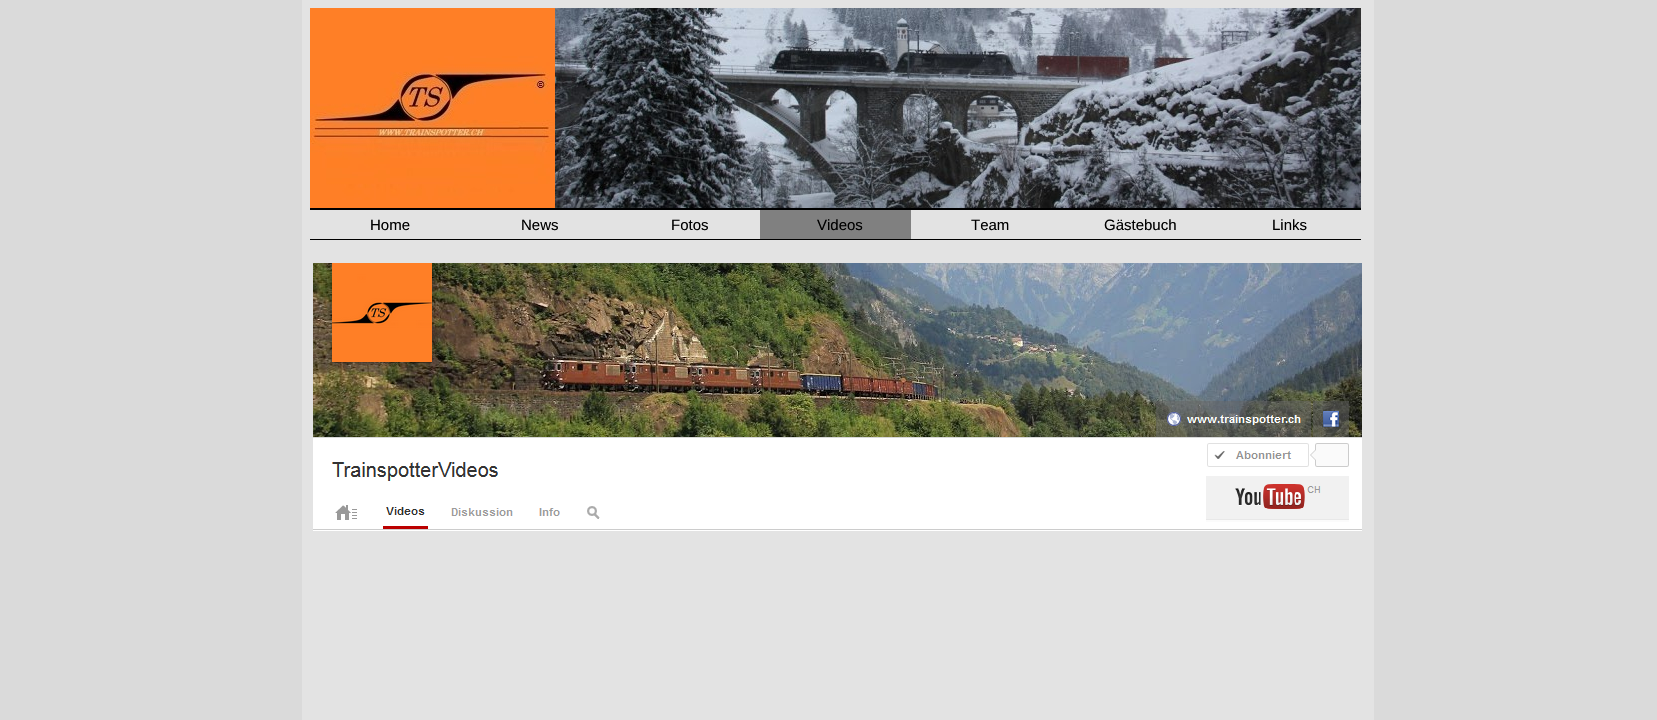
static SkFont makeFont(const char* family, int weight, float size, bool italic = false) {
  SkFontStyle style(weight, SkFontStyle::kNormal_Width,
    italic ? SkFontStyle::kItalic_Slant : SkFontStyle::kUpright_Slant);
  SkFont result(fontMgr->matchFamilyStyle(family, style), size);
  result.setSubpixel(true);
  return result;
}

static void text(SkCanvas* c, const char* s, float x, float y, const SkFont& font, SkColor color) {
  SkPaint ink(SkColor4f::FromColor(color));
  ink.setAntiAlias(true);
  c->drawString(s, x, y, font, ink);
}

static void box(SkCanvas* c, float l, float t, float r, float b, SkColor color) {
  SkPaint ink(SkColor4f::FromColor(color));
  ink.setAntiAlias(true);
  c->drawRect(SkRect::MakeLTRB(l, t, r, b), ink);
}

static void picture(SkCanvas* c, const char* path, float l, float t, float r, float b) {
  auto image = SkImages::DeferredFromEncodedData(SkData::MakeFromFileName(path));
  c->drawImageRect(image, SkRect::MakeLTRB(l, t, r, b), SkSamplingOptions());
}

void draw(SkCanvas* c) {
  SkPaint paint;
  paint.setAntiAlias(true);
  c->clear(0xffdadada);
  box(c, 302, 0, 1374, 720, 0xffe3e3e3);
  picture(c, "img_01.png", 310, 8, 555, 208);
  picture(c, "img_02.png", 555, 8, 1361, 208);
  box(c, 310, 208, 1361, 210, 0xff000000);
  box(c, 310, 239, 1361, 240, 0xff000000);
  SkFont face1 = makeFont("Liberation Sans", 400, 15);
  text(c, "Home", 370, 230, face1, 0xff000000);
  text(c, "News", 521, 230, face1, 0xff000000);
  text(c, "Fotos", 671, 230, face1, 0xff000000);
  box(c, 760, 210, 911, 239, 0xff808080);
  text(c, "Videos", 817, 230, face1, 0xff000000);
  text(c, "Team", 971, 230, face1, 0xff000000);
  text(c, "Gästebuch", 1104, 230, face1, 0xff000000);
  text(c, "Links", 1272, 230, face1, 0xff000000);
  picture(c, "img_03.png", 313, 263, 1362, 531);
}
